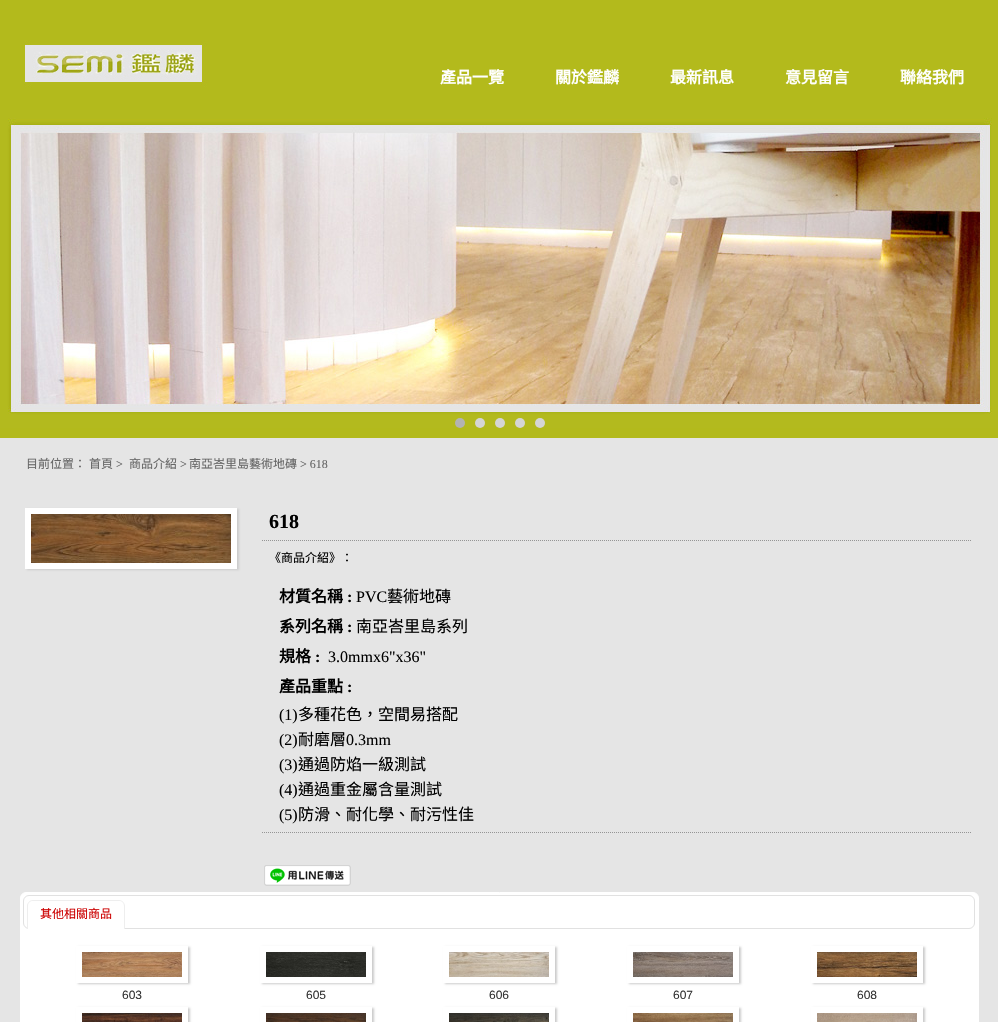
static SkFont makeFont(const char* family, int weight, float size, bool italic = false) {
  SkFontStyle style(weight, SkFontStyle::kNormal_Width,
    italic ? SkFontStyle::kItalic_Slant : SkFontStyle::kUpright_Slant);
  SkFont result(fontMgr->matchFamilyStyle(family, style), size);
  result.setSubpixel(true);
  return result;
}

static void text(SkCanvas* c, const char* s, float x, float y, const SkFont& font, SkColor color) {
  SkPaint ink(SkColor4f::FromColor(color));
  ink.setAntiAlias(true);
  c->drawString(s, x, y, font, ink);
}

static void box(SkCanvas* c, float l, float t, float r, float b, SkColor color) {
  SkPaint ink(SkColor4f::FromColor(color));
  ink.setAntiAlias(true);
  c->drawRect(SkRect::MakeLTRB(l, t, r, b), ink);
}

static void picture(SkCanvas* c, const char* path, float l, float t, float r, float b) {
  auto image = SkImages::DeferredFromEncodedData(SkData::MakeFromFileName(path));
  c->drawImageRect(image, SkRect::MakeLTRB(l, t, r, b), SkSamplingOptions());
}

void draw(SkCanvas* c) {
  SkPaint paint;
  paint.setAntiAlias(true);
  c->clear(0xffe5e5e5);
  picture(c, "img_01.png", 0, 0, 998, 110);
  SkFont face1 = makeFont("Noto Sans CJK TC", 700, 16);
  text(c, "產品一覽", 440, 83, face1, 0xffffffff);
  text(c, "關於鑑麟", 555, 83, face1, 0xffffffff);
  text(c, "最新訊息", 670, 83, face1, 0xffffffff);
  text(c, "意見留言", 785, 83, face1, 0xffffffff);
  text(c, "聯絡我們", 900, 83, face1, 0xffffffff);
  box(c, 0, 428, 998, 438, 0xffb3ba1c);
  picture(c, "img_02.png", 0, 110, 998, 428);
  paint.setColor(0xffb3b3b3);
  c->drawCircle(460, 423, 5, paint);
  paint.setColor(0xffd5d5d5);
  c->drawCircle(480, 423, 5, paint);
  c->drawCircle(500, 423, 5, paint);
  c->drawCircle(520, 423, 5, paint);
  c->drawCircle(540, 423, 5, paint);
  SkFont face2 = makeFont("Noto Sans CJK TC", 400, 12);
  text(c, "目前位置：", 26, 468, face2, 0xff666666);
  text(c, "首頁", 89, 468, face2, 0xff666666);
  SkFont face3 = makeFont("Liberation Serif", 400, 12);
  text(c, ">", 116, 468, face3, 0xff666666);
  text(c, "商品介紹", 129, 468, face2, 0xff666666);
  text(c, ">", 180, 468, face3, 0xff666666);
  text(c, "南亞峇里島藝術地磚", 189, 468, face2, 0xff666666);
  text(c, "> 618", 300, 468, face3, 0xff666666);
  paint.setColor(0xffcccccc);
  paint.setMaskFilter(SkMaskFilter::MakeBlur(kNormal_SkBlurStyle, 1));
  c->drawRect(SkRect::MakeLTRB(27, 509, 239, 570), paint);
  paint.setMaskFilter(nullptr);
  box(c, 25, 508, 237, 569, 0xffffffff);
  picture(c, "img_03.png", 31, 514, 231, 563);
  paint.setStyle(SkPaint::kStroke_Style);
  paint.setStrokeWidth(1);
  paint.setColor(0xff959595);
  paint.setPathEffect(SkDashPathEffect::Make({{1, 1}}, 0));
  c->drawPath(SkPathBuilder().moveTo(262, 540.5f).lineTo(972, 540.5f).detach(), paint);
  paint.setPathEffect(nullptr);
  SkFont face4 = makeFont("Liberation Serif", 700, 20);
  text(c, "618", 269, 528, face4, 0xff000000);
  text(c, "《商品介紹》：", 269, 562, face2, 0xff000000);
  paint.setPathEffect(SkDashPathEffect::Make({{1, 1}}, 0));
  c->drawPath(SkPathBuilder().moveTo(262, 832.5f).lineTo(972, 832.5f).detach(), paint);
  paint.setPathEffect(nullptr);
  text(c, "材質名稱", 279, 602, face1, 0xff000000);
  SkFont face5 = makeFont("Liberation Serif", 700, 16);
  text(c, ":", 347, 602, face5, 0xff000000);
  SkFont face6 = makeFont("Liberation Serif", 400, 16);
  text(c, "PVC", 356, 602, face6, 0xff000000);
  SkFont face7 = makeFont("Noto Sans CJK TC", 400, 16);
  text(c, "藝術地磚", 387, 602, face7, 0xff000000);
  text(c, "系列名稱", 279, 632, face1, 0xff000000);
  text(c, ":", 347, 632, face5, 0xff000000);
  text(c, "南亞峇里島系列", 356, 632, face7, 0xff000000);
  text(c, "規格", 279, 662, face1, 0xff000000);
  text(c, ":", 315, 662, face5, 0xff000000);
  text(c, "3.0mmx6\"x36\"", 328, 662, face6, 0xff000000);
  text(c, "產品重點", 279, 692, face1, 0xff000000);
  text(c, ":", 347, 692, face5, 0xff000000);
  text(c, "(1)", 279, 720, face6, 0xff000000);
  text(c, "多種花色，空間易搭配", 298, 720, face7, 0xff000000);
  text(c, "(2)", 279, 745, face6, 0xff000000);
  text(c, "耐磨層", 298, 745, face7, 0xff000000);
  text(c, "0.3mm", 346, 745, face6, 0xff000000);
  text(c, "(3)", 279, 770, face6, 0xff000000);
  text(c, "通過防焰一級測試", 298, 770, face7, 0xff000000);
  text(c, "(4)", 279, 795, face6, 0xff000000);
  text(c, "通過重金屬含量測試", 298, 795, face7, 0xff000000);
  text(c, "(5)", 279, 820, face6, 0xff000000);
  text(c, "防滑、耐化學、耐污性佳", 298, 820, face7, 0xff000000);
  picture(c, "img_04.png", 264, 865, 351, 886);
  paint.setStyle(SkPaint::kFill_Style);
  paint.setColor(0xffffffff);
  c->drawRoundRect(SkRect::MakeLTRB(20.5f, 892.5f, 978.5f, 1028.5f), 5.5f, 5.5f, paint);
  paint.setStyle(SkPaint::kStroke_Style);
  c->drawRoundRect(SkRect::MakeLTRB(20.5f, 892.5f, 978.5f, 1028.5f), 5.5f, 5.5f, paint);
  paint.setColor(0xffe1e1e1);
  c->drawRoundRect(SkRect::MakeLTRB(23.5f, 895.5f, 974.5f, 928.5f), 5.5f, 5.5f, paint);
  paint.setStyle(SkPaint::kFill_Style);
  paint.setColor(0xffffffff);
  c->drawPath(SkPathBuilder().moveTo(33, 900).lineTo(119, 900).cubicTo(122.5f, 900, 125, 902.5f, 125, 906).lineTo(125, 929).lineTo(27, 929).lineTo(27, 906).cubicTo(27, 902.5f, 29.5f, 900, 33, 900).close().detach(), paint);
  paint.setColor(0xffeeeeee);
  c->drawPath(SkPathBuilder(SkPathFillType::kEvenOdd).moveTo(33, 900).lineTo(119, 900).cubicTo(122, 900, 125, 903, 125, 906).lineTo(125, 929).lineTo(27, 929).lineTo(27, 906).cubicTo(27, 903, 30, 900, 33, 900).close().moveTo(33, 901).lineTo(119, 901).cubicTo(122, 901, 124, 903, 124, 906).lineTo(124, 929).lineTo(28, 929).lineTo(28, 906).cubicTo(28, 903, 30, 901, 33, 901).close().detach(), paint);
  text(c, "其他相關商品", 40, 918, face2, 0xffcc0000);
  c->save();
  c->clipPath(SkPathBuilder(SkPathFillType::kEvenOdd).moveTo(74, 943).lineTo(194, 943).lineTo(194, 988).lineTo(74, 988).close().moveTo(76, 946).lineTo(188, 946).lineTo(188, 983).lineTo(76, 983).close().detach(), true);
  paint.setColor(0xffcccccc);
  paint.setMaskFilter(SkMaskFilter::MakeBlur(kNormal_SkBlurStyle, 1));
  c->drawRect(SkRect::MakeLTRB(78, 947, 190, 984), paint);
  paint.setMaskFilter(nullptr);
  c->restore();
  picture(c, "img_05.png", 82, 952, 182, 977);
  SkFont face8 = makeFont("Liberation Sans", 400, 12);
  text(c, "603", 122, 999, face8, 0xff333333);
  c->save();
  c->clipPath(SkPathBuilder(SkPathFillType::kEvenOdd).moveTo(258, 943).lineTo(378, 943).lineTo(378, 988).lineTo(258, 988).close().moveTo(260, 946).lineTo(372, 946).lineTo(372, 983).lineTo(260, 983).close().detach(), true);
  paint.setMaskFilter(SkMaskFilter::MakeBlur(kNormal_SkBlurStyle, 1));
  c->drawRect(SkRect::MakeLTRB(262, 947, 374, 984), paint);
  paint.setMaskFilter(nullptr);
  c->restore();
  picture(c, "img_06.png", 266, 952, 366, 977);
  text(c, "605", 306, 999, face8, 0xff333333);
  c->save();
  c->clipPath(SkPathBuilder(SkPathFillType::kEvenOdd).moveTo(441, 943).lineTo(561, 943).lineTo(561, 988).lineTo(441, 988).close().moveTo(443, 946).lineTo(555, 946).lineTo(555, 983).lineTo(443, 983).close().detach(), true);
  paint.setMaskFilter(SkMaskFilter::MakeBlur(kNormal_SkBlurStyle, 1));
  c->drawRect(SkRect::MakeLTRB(445, 947, 557, 984), paint);
  paint.setMaskFilter(nullptr);
  c->restore();
  picture(c, "img_07.png", 449, 952, 549, 977);
  text(c, "606", 489, 999, face8, 0xff333333);
  c->save();
  c->clipPath(SkPathBuilder(SkPathFillType::kEvenOdd).moveTo(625, 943).lineTo(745, 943).lineTo(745, 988).lineTo(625, 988).close().moveTo(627, 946).lineTo(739, 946).lineTo(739, 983).lineTo(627, 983).close().detach(), true);
  paint.setMaskFilter(SkMaskFilter::MakeBlur(kNormal_SkBlurStyle, 1));
  c->drawRect(SkRect::MakeLTRB(629, 947, 741, 984), paint);
  paint.setMaskFilter(nullptr);
  c->restore();
  picture(c, "img_08.png", 633, 952, 733, 977);
  text(c, "607", 673, 999, face8, 0xff333333);
  c->save();
  c->clipPath(SkPathBuilder(SkPathFillType::kEvenOdd).moveTo(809, 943).lineTo(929, 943).lineTo(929, 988).lineTo(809, 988).close().moveTo(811, 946).lineTo(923, 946).lineTo(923, 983).lineTo(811, 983).close().detach(), true);
  paint.setMaskFilter(SkMaskFilter::MakeBlur(kNormal_SkBlurStyle, 1));
  c->drawRect(SkRect::MakeLTRB(813, 947, 925, 984), paint);
  paint.setMaskFilter(nullptr);
  c->restore();
  picture(c, "img_09.png", 817, 952, 917, 977);
  text(c, "608", 857, 999, face8, 0xff333333);
  c->save();
  c->clipPath(SkPathBuilder(SkPathFillType::kEvenOdd).moveTo(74, 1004).lineTo(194, 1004).lineTo(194, 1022).lineTo(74, 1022).close().moveTo(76, 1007).lineTo(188, 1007).lineTo(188, 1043).lineTo(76, 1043).close().detach(), true);
  paint.setMaskFilter(SkMaskFilter::MakeBlur(kNormal_SkBlurStyle, 1));
  c->drawRect(SkRect::MakeLTRB(78, 1008, 190, 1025), paint);
  paint.setMaskFilter(nullptr);
  c->restore();
  picture(c, "img_10.png", 82, 1013, 182, 1022);
  c->save();
  c->clipPath(SkPathBuilder(SkPathFillType::kEvenOdd).moveTo(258, 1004).lineTo(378, 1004).lineTo(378, 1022).lineTo(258, 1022).close().moveTo(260, 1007).lineTo(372, 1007).lineTo(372, 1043).lineTo(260, 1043).close().detach(), true);
  paint.setMaskFilter(SkMaskFilter::MakeBlur(kNormal_SkBlurStyle, 1));
  c->drawRect(SkRect::MakeLTRB(262, 1008, 374, 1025), paint);
  paint.setMaskFilter(nullptr);
  c->restore();
  picture(c, "img_11.png", 266, 1013, 366, 1022);
  c->save();
  c->clipPath(SkPathBuilder(SkPathFillType::kEvenOdd).moveTo(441, 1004).lineTo(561, 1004).lineTo(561, 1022).lineTo(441, 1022).close().moveTo(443, 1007).lineTo(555, 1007).lineTo(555, 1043).lineTo(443, 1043).close().detach(), true);
  paint.setMaskFilter(SkMaskFilter::MakeBlur(kNormal_SkBlurStyle, 1));
  c->drawRect(SkRect::MakeLTRB(445, 1008, 557, 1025), paint);
  paint.setMaskFilter(nullptr);
  c->restore();
  picture(c, "img_12.png", 449, 1013, 549, 1022);
  c->save();
  c->clipPath(SkPathBuilder(SkPathFillType::kEvenOdd).moveTo(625, 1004).lineTo(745, 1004).lineTo(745, 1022).lineTo(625, 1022).close().moveTo(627, 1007).lineTo(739, 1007).lineTo(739, 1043).lineTo(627, 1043).close().detach(), true);
  paint.setMaskFilter(SkMaskFilter::MakeBlur(kNormal_SkBlurStyle, 1));
  c->drawRect(SkRect::MakeLTRB(629, 1008, 741, 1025), paint);
  paint.setMaskFilter(nullptr);
  c->restore();
  picture(c, "img_13.png", 633, 1013, 733, 1022);
  c->save();
  c->clipPath(SkPathBuilder(SkPathFillType::kEvenOdd).moveTo(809, 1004).lineTo(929, 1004).lineTo(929, 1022).lineTo(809, 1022).close().moveTo(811, 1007).lineTo(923, 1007).lineTo(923, 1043).lineTo(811, 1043).close().detach(), true);
  paint.setMaskFilter(SkMaskFilter::MakeBlur(kNormal_SkBlurStyle, 1));
  c->drawRect(SkRect::MakeLTRB(813, 1008, 925, 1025), paint);
  paint.setMaskFilter(nullptr);
  c->restore();
  picture(c, "img_14.png", 817, 1013, 917, 1022);
}
